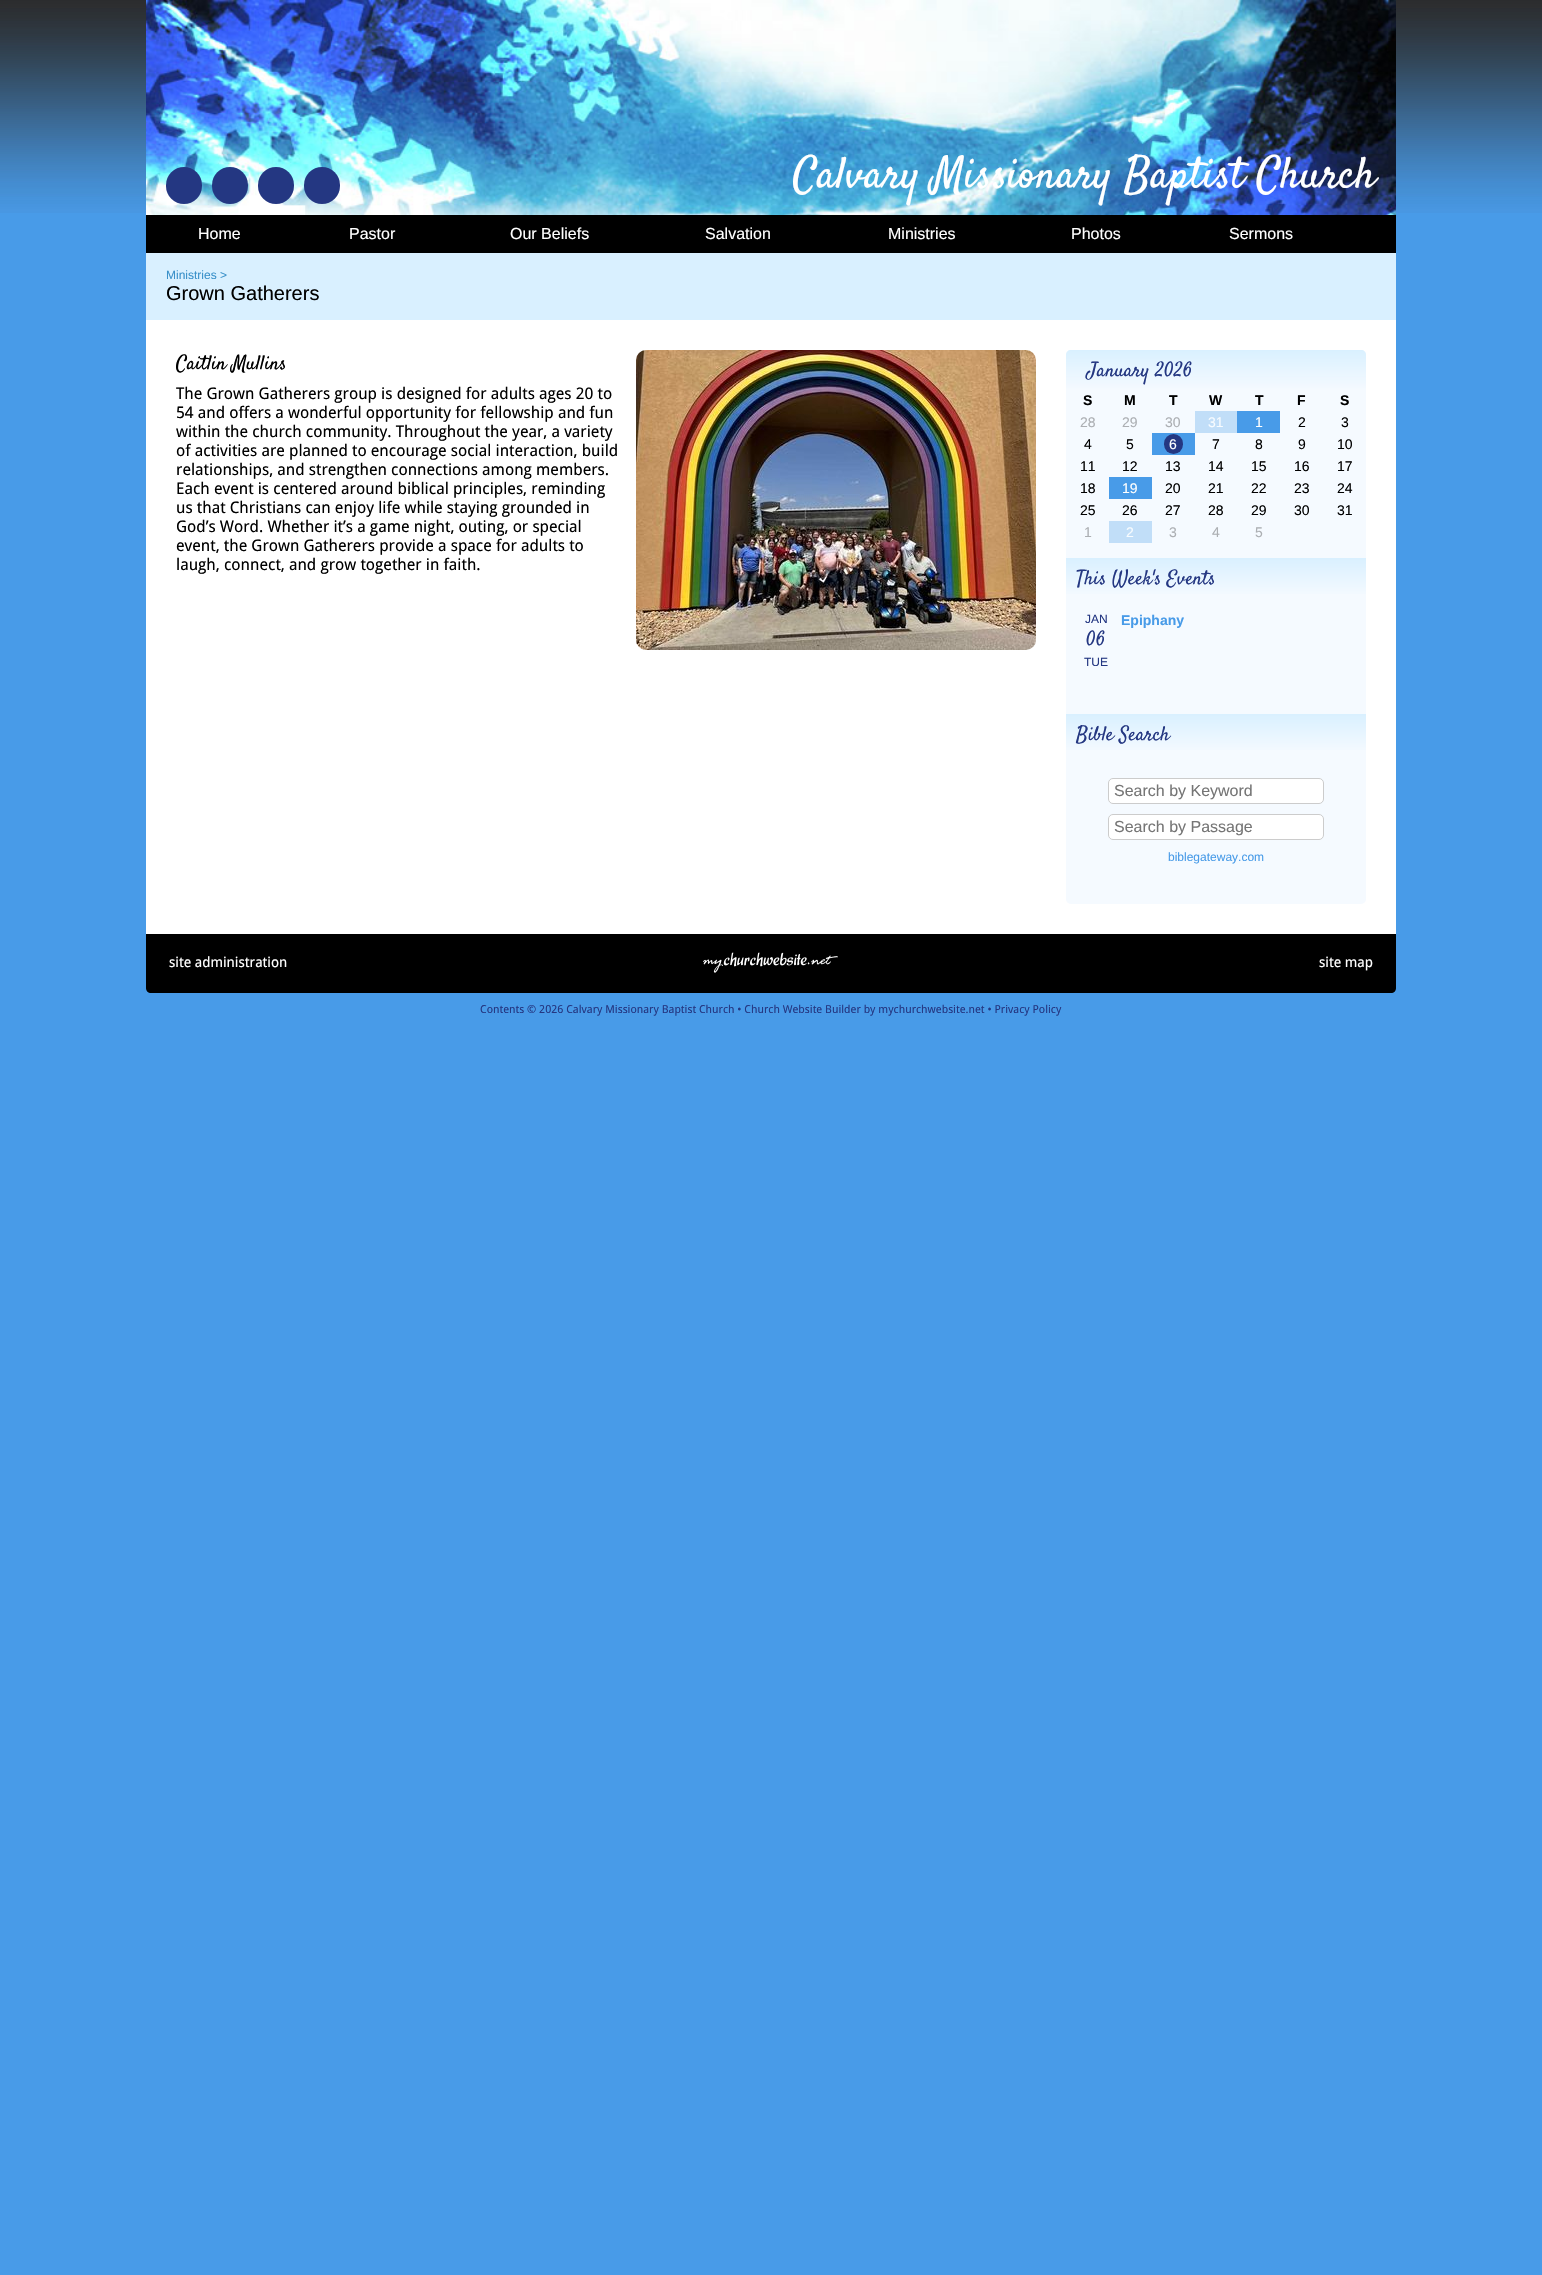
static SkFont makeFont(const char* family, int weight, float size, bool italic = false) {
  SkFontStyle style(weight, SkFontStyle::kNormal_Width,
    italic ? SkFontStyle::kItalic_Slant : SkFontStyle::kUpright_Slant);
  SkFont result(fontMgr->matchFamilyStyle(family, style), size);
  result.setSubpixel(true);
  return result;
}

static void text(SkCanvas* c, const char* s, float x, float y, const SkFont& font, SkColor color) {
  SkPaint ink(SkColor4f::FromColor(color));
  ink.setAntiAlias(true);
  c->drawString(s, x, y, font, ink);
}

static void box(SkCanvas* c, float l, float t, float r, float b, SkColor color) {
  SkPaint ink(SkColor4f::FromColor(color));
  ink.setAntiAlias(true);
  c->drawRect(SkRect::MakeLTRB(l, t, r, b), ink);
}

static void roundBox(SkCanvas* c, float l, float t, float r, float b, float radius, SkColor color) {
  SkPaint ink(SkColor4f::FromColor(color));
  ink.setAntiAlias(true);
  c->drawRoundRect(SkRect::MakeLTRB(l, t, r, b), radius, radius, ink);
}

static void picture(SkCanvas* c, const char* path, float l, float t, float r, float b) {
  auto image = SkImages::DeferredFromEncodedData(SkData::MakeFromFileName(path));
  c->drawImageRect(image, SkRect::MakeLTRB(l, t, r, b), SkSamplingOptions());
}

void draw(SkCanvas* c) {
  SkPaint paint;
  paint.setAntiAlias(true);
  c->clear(0xff489be8);
  picture(c, "img_01.png", 0, 0, 1542, 213);
  picture(c, "img_02.png", 146, 0, 1396, 215);
  roundBox(c, 166, 167, 202, 204, 18, 0xff243782);
  roundBox(c, 212, 167, 248, 204, 18, 0xff243782);
  roundBox(c, 258, 167, 294, 204, 18, 0xff243782);
  roundBox(c, 304, 167, 340, 204, 18, 0xff243782);
  SkFont face1 = makeFont("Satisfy", 400, 44);
  text(c, "Calvary Missionary Baptist Church", 793, 187, face1, 0xffffffff);
  box(c, 146, 215, 1396, 253, 0xff000000);
  SkFont face2 = makeFont("Liberation Sans", 400, 16);
  text(c, "Home", 198, 239, face2, 0xffffffff);
  text(c, "Pastor", 349, 239, face2, 0xffffffff);
  text(c, "Our Beliefs", 510, 239, face2, 0xffffffff);
  text(c, "Salvation", 705, 239, face2, 0xffffffff);
  text(c, "Ministries", 888, 239, face2, 0xffffffff);
  text(c, "Photos", 1071, 239, face2, 0xffffffff);
  text(c, "Sermons", 1229, 239, face2, 0xffffffff);
  box(c, 146, 320, 1396, 934, 0xffffffff);
  box(c, 146, 253, 1396, 320, 0xffd9f0ff);
  SkFont face3 = makeFont("Liberation Sans", 400, 12);
  text(c, "Ministries >", 166, 279, face3, 0xff3a91ca);
  SkFont face4 = makeFont("Liberation Sans", 400, 20);
  text(c, "Grown Gatherers", 166, 300, face4, 0xff000000);
  SkFont face5 = makeFont("Satisfy", 400, 20);
  text(c, "Caitlin Mullins", 176, 369, face5, 0xff000000);
  picture(c, "img_03.png", 636, 350, 1036, 650);
  SkFont face6 = makeFont("Droid Sans", 400, 16);
  text(c, "The Grown Gatherers group is designed for adults ages 20 to", 176, 399, face6, 0xff000000);
  text(c, "54 and offers a wonderful opportunity for fellowship and fun", 176, 418, face6, 0xff000000);
  text(c, "within the church community. Throughout the year, a variety", 176, 437, face6, 0xff000000);
  text(c, "of activities are planned to encourage social interaction, build", 176, 456, face6, 0xff000000);
  text(c, "relationships, and strengthen connections among members.", 176, 475, face6, 0xff000000);
  text(c, "Each event is centered around biblical principles, reminding", 176, 494, face6, 0xff000000);
  text(c, "us that Christians can enjoy life while staying grounded in", 176, 513, face6, 0xff000000);
  text(c, "God’s Word. Whether it’s a game night, outing, or special", 176, 532, face6, 0xff000000);
  text(c, "event, the Grown Gatherers provide a space for adults to", 176, 551, face6, 0xff000000);
  text(c, "laugh, connect, and grow together in faith.", 176, 570, face6, 0xff000000);
  roundBox(c, 1066, 350, 1366, 904, 5, 0xfff5faff);
  {
    const SkColor colors[] = {0xffd9f0ff, 0x03d9f0ff};
    const float stops[] = {0, 1};
    const SkPoint ends[] = {{1216, 350}, {1216, 389}};
    paint.setShader(SkGradientShader::MakeLinear(ends, colors, stops, 2, SkTileMode::kClamp));
    paint.setAlpha(255);
  }
  c->drawPath(SkPathBuilder().moveTo(1071, 350).lineTo(1361, 350).cubicTo(1364, 350, 1366, 352, 1366, 355).lineTo(1366, 389).lineTo(1066, 389).lineTo(1066, 355).cubicTo(1066, 352, 1068, 350, 1071, 350).close().detach(), paint);
  text(c, "January 2026", 1087, 376, face5, 0xff243782);
  SkFont face7 = makeFont("Liberation Sans", 700, 14);
  text(c, "S", 1083, 405, face7, 0xff000000);
  text(c, "M", 1124, 405, face7, 0xff000000);
  text(c, "T", 1169, 405, face7, 0xff000000);
  text(c, "W", 1209, 405, face7, 0xff000000);
  text(c, "T", 1255, 405, face7, 0xff000000);
  text(c, "F", 1297, 405, face7, 0xff000000);
  text(c, "S", 1340, 405, face7, 0xff000000);
  SkFont face8 = makeFont("Liberation Sans", 400, 14);
  text(c, "28", 1080, 427, face8, 0xffacafb3);
  text(c, "29", 1122, 427, face8, 0xffacafb3);
  text(c, "30", 1165, 427, face8, 0xffacafb3);
  box(c, 1195, 411, 1237, 433, 0xffc1def8);
  text(c, "31", 1208, 427, face8, 0xfff8fcff);
  box(c, 1237, 411, 1280, 433, 0xff489be8);
  text(c, "1", 1255, 427, face8, 0xffffffff);
  text(c, "2", 1298, 427, face8, 0xff000000);
  text(c, "3", 1341, 427, face8, 0xff000000);
  text(c, "4", 1084, 449, face8, 0xff000000);
  text(c, "5", 1126, 449, face8, 0xff000000);
  box(c, 1152, 433, 1195, 455, 0xff489be8);
  roundBox(c, 1164, 434, 1183, 454, 9.5f, 0xff243782);
  text(c, "6", 1169, 449, face8, 0xffffffff);
  text(c, "7", 1212, 449, face8, 0xff000000);
  text(c, "8", 1255, 449, face8, 0xff000000);
  text(c, "9", 1298, 449, face8, 0xff000000);
  text(c, "10", 1337, 449, face8, 0xff000000);
  text(c, "11", 1080, 471, face8, 0xff000000);
  text(c, "12", 1122, 471, face8, 0xff000000);
  text(c, "13", 1165, 471, face8, 0xff000000);
  text(c, "14", 1208, 471, face8, 0xff000000);
  text(c, "15", 1251, 471, face8, 0xff000000);
  text(c, "16", 1294, 471, face8, 0xff000000);
  text(c, "17", 1337, 471, face8, 0xff000000);
  text(c, "18", 1080, 493, face8, 0xff000000);
  box(c, 1109, 477, 1152, 499, 0xff489be8);
  text(c, "19", 1122, 493, face8, 0xffffffff);
  text(c, "20", 1165, 493, face8, 0xff000000);
  text(c, "21", 1208, 493, face8, 0xff000000);
  text(c, "22", 1251, 493, face8, 0xff000000);
  text(c, "23", 1294, 493, face8, 0xff000000);
  text(c, "24", 1337, 493, face8, 0xff000000);
  text(c, "25", 1080, 515, face8, 0xff000000);
  text(c, "26", 1122, 515, face8, 0xff000000);
  text(c, "27", 1165, 515, face8, 0xff000000);
  text(c, "28", 1208, 515, face8, 0xff000000);
  text(c, "29", 1251, 515, face8, 0xff000000);
  text(c, "30", 1294, 515, face8, 0xff000000);
  text(c, "31", 1337, 515, face8, 0xff000000);
  text(c, "1", 1084, 537, face8, 0xffacafb3);
  box(c, 1109, 521, 1152, 543, 0xffc1def8);
  text(c, "2", 1126, 537, face8, 0xfff8fcff);
  text(c, "3", 1169, 537, face8, 0xffacafb3);
  text(c, "4", 1212, 537, face8, 0xffacafb3);
  text(c, "5", 1255, 537, face8, 0xffacafb3);
  {
    const SkColor colors[] = {0xffd9f0ff, 0xfff5faff};
    const float stops[] = {0, 1};
    const SkPoint ends[] = {{1216, 558}, {1216, 597}};
    paint.setShader(SkGradientShader::MakeLinear(ends, colors, stops, 2, SkTileMode::kClamp));
    paint.setAlpha(255);
  }
  c->drawRect(SkRect::MakeLTRB(1066, 558, 1366, 594), paint);
  text(c, "This Week's Events", 1076, 584, face5, 0xff243782);
  text(c, "JAN", 1085, 623, face3, 0xff243782);
  text(c, "06", 1086, 645, face5, 0xff243782);
  text(c, "TUE", 1084, 666, face3, 0xff243782);
  text(c, "Epiphany", 1121, 625, face7, 0xff489be8);
  {
    const SkColor colors[] = {0xffd9f0ff, 0xfff5faff};
    const float stops[] = {0, 1};
    const SkPoint ends[] = {{1216, 714}, {1216, 753}};
    paint.setShader(SkGradientShader::MakeLinear(ends, colors, stops, 2, SkTileMode::kClamp));
    paint.setAlpha(255);
  }
  c->drawRect(SkRect::MakeLTRB(1066, 714, 1366, 750), paint);
  text(c, "Bible Search", 1076, 740, face5, 0xff243782);
  paint.setShader(nullptr);
  paint.setColor(0xffffffff);
  c->drawRoundRect(SkRect::MakeLTRB(1108.5f, 778.5f, 1323.5f, 803.5f), 4.5f, 4.5f, paint);
  paint.setStyle(SkPaint::kStroke_Style);
  paint.setStrokeWidth(1);
  paint.setColor(0xffcccccc);
  c->drawRoundRect(SkRect::MakeLTRB(1108.5f, 778.5f, 1323.5f, 803.5f), 4.5f, 4.5f, paint);
  text(c, "Search by Keyword", 1114, 796, face2, 0xff757575);
  paint.setStyle(SkPaint::kFill_Style);
  paint.setColor(0xffffffff);
  c->drawRoundRect(SkRect::MakeLTRB(1108.5f, 814.5f, 1323.5f, 839.5f), 4.5f, 4.5f, paint);
  paint.setStyle(SkPaint::kStroke_Style);
  paint.setColor(0xffcccccc);
  c->drawRoundRect(SkRect::MakeLTRB(1108.5f, 814.5f, 1323.5f, 839.5f), 4.5f, 4.5f, paint);
  text(c, "Search by Passage", 1114, 832, face2, 0xff757575);
  text(c, "biblegateway.com", 1168, 861, face3, 0xff489be8);
  paint.setStyle(SkPaint::kFill_Style);
  paint.setColor(0xff000000);
  c->drawPath(SkPathBuilder().moveTo(146, 934).lineTo(1396, 934).lineTo(1396, 988).cubicTo(1396, 991, 1394, 993, 1391, 993).lineTo(151, 993).cubicTo(148, 993, 146, 991, 146, 988).close().detach(), paint);
  SkFont face9 = makeFont("Droid Sans", 400, 14);
  text(c, "site administration", 169, 967, face9, 0xffffffff);
  picture(c, "img_04.png", 703, 952, 838, 973);
  text(c, "site map", 1319, 967, face9, 0xffffffff);
  SkFont face10 = makeFont("Droid Sans", 400, 11);
  text(c, "Contents © 2026 Calvary Missionary Baptist Church • Church Website Builder by mychurchwebsite.net • Privacy Policy", 480, 1013, face10, 0xff243782);
}
